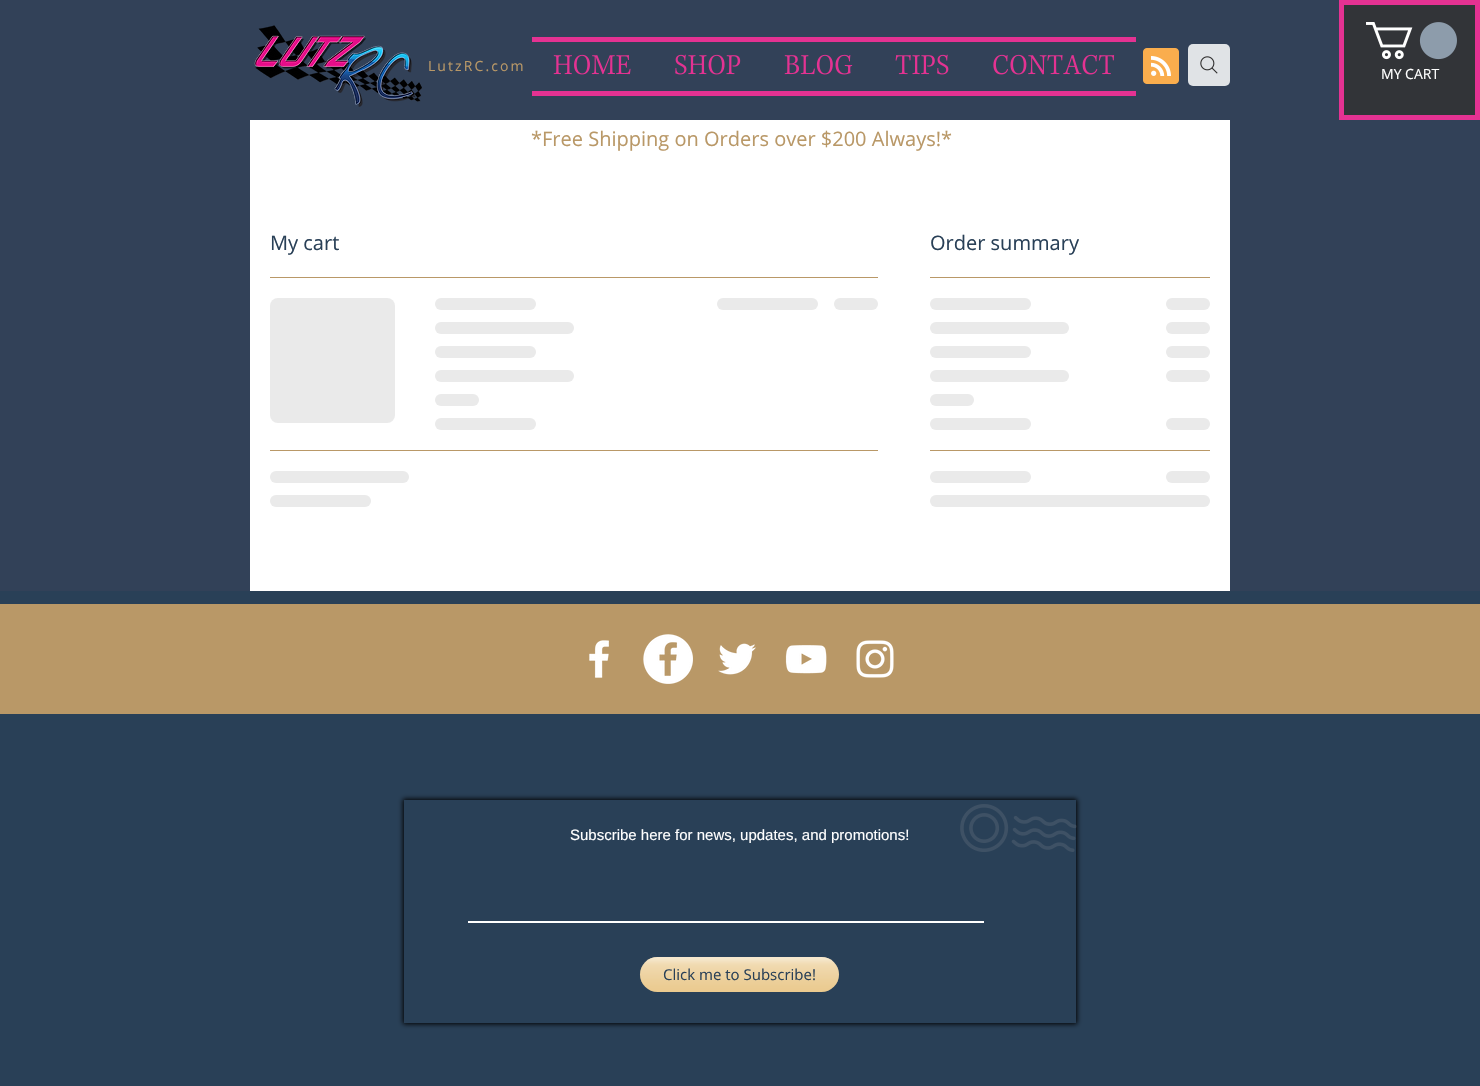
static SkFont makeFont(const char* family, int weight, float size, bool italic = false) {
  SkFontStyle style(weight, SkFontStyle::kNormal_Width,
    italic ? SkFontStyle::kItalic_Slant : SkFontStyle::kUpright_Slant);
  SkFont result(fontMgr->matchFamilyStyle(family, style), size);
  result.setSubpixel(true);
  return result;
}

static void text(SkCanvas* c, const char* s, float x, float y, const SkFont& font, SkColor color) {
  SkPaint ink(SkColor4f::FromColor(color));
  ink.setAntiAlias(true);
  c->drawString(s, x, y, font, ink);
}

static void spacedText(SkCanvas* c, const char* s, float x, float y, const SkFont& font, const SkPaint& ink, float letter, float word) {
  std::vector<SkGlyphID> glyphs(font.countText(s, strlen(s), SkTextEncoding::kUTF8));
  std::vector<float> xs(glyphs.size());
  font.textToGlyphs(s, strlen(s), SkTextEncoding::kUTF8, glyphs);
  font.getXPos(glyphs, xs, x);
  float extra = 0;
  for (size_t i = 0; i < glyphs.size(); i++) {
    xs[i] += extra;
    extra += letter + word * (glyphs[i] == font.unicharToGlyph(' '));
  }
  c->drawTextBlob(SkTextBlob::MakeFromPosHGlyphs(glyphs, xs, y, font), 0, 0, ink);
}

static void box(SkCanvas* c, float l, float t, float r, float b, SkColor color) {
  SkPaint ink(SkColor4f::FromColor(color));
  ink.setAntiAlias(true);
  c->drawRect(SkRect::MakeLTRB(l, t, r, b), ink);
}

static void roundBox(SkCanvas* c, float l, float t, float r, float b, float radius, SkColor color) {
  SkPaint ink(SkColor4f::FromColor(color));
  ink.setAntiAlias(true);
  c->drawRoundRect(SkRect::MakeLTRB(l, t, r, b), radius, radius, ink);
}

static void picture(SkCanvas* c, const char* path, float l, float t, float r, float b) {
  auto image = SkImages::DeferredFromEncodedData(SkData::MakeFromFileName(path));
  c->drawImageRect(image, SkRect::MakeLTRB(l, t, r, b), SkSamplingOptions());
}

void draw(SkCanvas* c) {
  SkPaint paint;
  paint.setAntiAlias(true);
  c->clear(0xff324158);
  picture(c, "img_01.png", 254, 25, 422, 107);
  SkFont face1 = makeFont("Open Sans", 400, 14);
  paint.setColor(0xffb99867);
  spacedText(c, "LutzRC.com", 428, 71, face1, paint, 2.1f, 0);
  box(c, 532, 37, 1136, 42, 0xffe43292);
  box(c, 532, 91, 1136, 96, 0xffe43292);
  picture(c, "img_02.png", 553, 54, 631, 75);
  picture(c, "img_03.png", 675, 54, 741, 75);
  picture(c, "img_04.png", 784, 54, 853, 75);
  picture(c, "img_05.png", 895, 54, 949, 75);
  picture(c, "img_06.png", 993, 54, 1115, 75);
  picture(c, "img_07.png", 1143, 48, 1179, 84);
  roundBox(c, 1188, 44, 1230, 86, 5, 0xffe0e3e6);
  picture(c, "img_08.png", 1200, 56, 1218, 74);
  paint.setColor(0xff323438);
  c->drawRect(SkRect::MakeLTRB(1341.5f, 2.5f, 1477.5f, 117.5f), paint);
  paint.setStyle(SkPaint::kStroke_Style);
  paint.setStrokeWidth(5);
  paint.setColor(0xffe43292);
  c->drawRect(SkRect::MakeLTRB(1341.5f, 2.5f, 1477.5f, 117.5f), paint);
  picture(c, "img_09.png", 1366, 22, 1457, 60);
  text(c, "MY CART", 1381, 79, face1, 0xffffffff);
  box(c, 250, 120, 1230, 591, 0xffffffff);
  SkFont face2 = makeFont("Open Sans", 400, 20);
  text(c, "*Free Shipping on Orders over $200 Always!*", 531, 146, face2, 0xffb99867);
  box(c, 270, 277, 878, 278, 0xffb99867);
  text(c, "My cart", 270, 250, face2, 0xff294057);
  paint.setStyle(SkPaint::kFill_Style);
  {
    const SkColor colors[] = {0xffeaeaea, 0xffd5d5d5, 0xffeaeaea};
    const float stops[] = {0.25f, 0.37f, 0.63f};
    const SkPoint ends[] = {{270, 361}, {770, 361}};
    paint.setShader(SkGradientShader::MakeLinear(ends, colors, stops, 3, SkTileMode::kClamp));
    paint.setAlpha(255);
  }
  c->drawRoundRect(SkRect::MakeLTRB(270, 298, 395, 423), 8, 8, paint);
  {
    const SkColor colors[] = {0xffeaeaea, 0xffd5d5d5, 0xffeaeaea};
    const float stops[] = {0.25f, 0.37f, 0.63f};
    const SkPoint ends[] = {{435, 304}, {839, 304}};
    paint.setShader(SkGradientShader::MakeLinear(ends, colors, stops, 3, SkTileMode::kClamp));
    paint.setAlpha(255);
  }
  c->drawRoundRect(SkRect::MakeLTRB(435, 298, 536, 310), 6, 6, paint);
  {
    const SkColor colors[] = {0xffeaeaea, 0xffd5d5d5, 0xffeaeaea};
    const float stops[] = {0.25f, 0.37f, 0.63f};
    const SkPoint ends[] = {{435, 328}, {991, 328}};
    paint.setShader(SkGradientShader::MakeLinear(ends, colors, stops, 3, SkTileMode::kClamp));
    paint.setAlpha(255);
  }
  c->drawRoundRect(SkRect::MakeLTRB(435, 322, 574, 334), 6, 6, paint);
  {
    const SkColor colors[] = {0xffeaeaea, 0xffd5d5d5, 0xffeaeaea};
    const float stops[] = {0.25f, 0.37f, 0.63f};
    const SkPoint ends[] = {{435, 352}, {839, 352}};
    paint.setShader(SkGradientShader::MakeLinear(ends, colors, stops, 3, SkTileMode::kClamp));
    paint.setAlpha(255);
  }
  c->drawRoundRect(SkRect::MakeLTRB(435, 346, 536, 358), 6, 6, paint);
  {
    const SkColor colors[] = {0xffeaeaea, 0xffd5d5d5, 0xffeaeaea};
    const float stops[] = {0.25f, 0.37f, 0.63f};
    const SkPoint ends[] = {{435, 376}, {991, 376}};
    paint.setShader(SkGradientShader::MakeLinear(ends, colors, stops, 3, SkTileMode::kClamp));
    paint.setAlpha(255);
  }
  c->drawRoundRect(SkRect::MakeLTRB(435, 370, 574, 382), 6, 6, paint);
  {
    const SkColor colors[] = {0xffeaeaea, 0xffd5d5d5, 0xffeaeaea};
    const float stops[] = {0.25f, 0.37f, 0.63f};
    const SkPoint ends[] = {{435, 400}, {611, 400}};
    paint.setShader(SkGradientShader::MakeLinear(ends, colors, stops, 3, SkTileMode::kClamp));
    paint.setAlpha(255);
  }
  c->drawRoundRect(SkRect::MakeLTRB(435, 394, 479, 406), 6, 6, paint);
  {
    const SkColor colors[] = {0xffeaeaea, 0xffd5d5d5, 0xffeaeaea};
    const float stops[] = {0.25f, 0.37f, 0.63f};
    const SkPoint ends[] = {{435, 424}, {839, 424}};
    paint.setShader(SkGradientShader::MakeLinear(ends, colors, stops, 3, SkTileMode::kClamp));
    paint.setAlpha(255);
  }
  c->drawRoundRect(SkRect::MakeLTRB(435, 418, 536, 430), 6, 6, paint);
  {
    const SkColor colors[] = {0xffeaeaea, 0xffd5d5d5, 0xffeaeaea};
    const float stops[] = {0.25f, 0.37f, 0.63f};
    const SkPoint ends[] = {{717, 304}, {1121, 304}};
    paint.setShader(SkGradientShader::MakeLinear(ends, colors, stops, 3, SkTileMode::kClamp));
    paint.setAlpha(255);
  }
  c->drawRoundRect(SkRect::MakeLTRB(717, 298, 818, 310), 6, 6, paint);
  {
    const SkColor colors[] = {0xffeaeaea, 0xffd5d5d5, 0xffeaeaea};
    const float stops[] = {0.25f, 0.37f, 0.63f};
    const SkPoint ends[] = {{834, 304}, {1010, 304}};
    paint.setShader(SkGradientShader::MakeLinear(ends, colors, stops, 3, SkTileMode::kClamp));
    paint.setAlpha(255);
  }
  c->drawRoundRect(SkRect::MakeLTRB(834, 298, 878, 310), 6, 6, paint);
  box(c, 270, 450, 878, 451, 0xffb99867);
  {
    const SkColor colors[] = {0xffeaeaea, 0xffd5d5d5, 0xffeaeaea};
    const float stops[] = {0.25f, 0.37f, 0.63f};
    const SkPoint ends[] = {{270, 477}, {826, 477}};
    paint.setShader(SkGradientShader::MakeLinear(ends, colors, stops, 3, SkTileMode::kClamp));
    paint.setAlpha(255);
  }
  c->drawRoundRect(SkRect::MakeLTRB(270, 471, 409, 483), 6, 6, paint);
  {
    const SkColor colors[] = {0xffeaeaea, 0xffd5d5d5, 0xffeaeaea};
    const float stops[] = {0.25f, 0.37f, 0.63f};
    const SkPoint ends[] = {{270, 501}, {674, 501}};
    paint.setShader(SkGradientShader::MakeLinear(ends, colors, stops, 3, SkTileMode::kClamp));
    paint.setAlpha(255);
  }
  c->drawRoundRect(SkRect::MakeLTRB(270, 495, 371, 507), 6, 6, paint);
  box(c, 930, 277, 1210, 278, 0xffb99867);
  text(c, "Order summary", 930, 250, face2, 0xff294057);
  {
    const SkColor colors[] = {0xffeaeaea, 0xffd5d5d5, 0xffeaeaea};
    const float stops[] = {0.25f, 0.37f, 0.63f};
    const SkPoint ends[] = {{930, 304}, {1334, 304}};
    paint.setShader(SkGradientShader::MakeLinear(ends, colors, stops, 3, SkTileMode::kClamp));
    paint.setAlpha(255);
  }
  c->drawRoundRect(SkRect::MakeLTRB(930, 298, 1031, 310), 6, 6, paint);
  {
    const SkColor colors[] = {0xffeaeaea, 0xffd5d5d5, 0xffeaeaea};
    const float stops[] = {0.25f, 0.37f, 0.63f};
    const SkPoint ends[] = {{1166, 304}, {1342, 304}};
    paint.setShader(SkGradientShader::MakeLinear(ends, colors, stops, 3, SkTileMode::kClamp));
    paint.setAlpha(255);
  }
  c->drawRoundRect(SkRect::MakeLTRB(1166, 298, 1210, 310), 6, 6, paint);
  {
    const SkColor colors[] = {0xffeaeaea, 0xffd5d5d5, 0xffeaeaea};
    const float stops[] = {0.25f, 0.37f, 0.63f};
    const SkPoint ends[] = {{930, 328}, {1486, 328}};
    paint.setShader(SkGradientShader::MakeLinear(ends, colors, stops, 3, SkTileMode::kClamp));
    paint.setAlpha(255);
  }
  c->drawRoundRect(SkRect::MakeLTRB(930, 322, 1069, 334), 6, 6, paint);
  {
    const SkColor colors[] = {0xffeaeaea, 0xffd5d5d5, 0xffeaeaea};
    const float stops[] = {0.25f, 0.37f, 0.63f};
    const SkPoint ends[] = {{1166, 328}, {1342, 328}};
    paint.setShader(SkGradientShader::MakeLinear(ends, colors, stops, 3, SkTileMode::kClamp));
    paint.setAlpha(255);
  }
  c->drawRoundRect(SkRect::MakeLTRB(1166, 322, 1210, 334), 6, 6, paint);
  {
    const SkColor colors[] = {0xffeaeaea, 0xffd5d5d5, 0xffeaeaea};
    const float stops[] = {0.25f, 0.37f, 0.63f};
    const SkPoint ends[] = {{930, 352}, {1334, 352}};
    paint.setShader(SkGradientShader::MakeLinear(ends, colors, stops, 3, SkTileMode::kClamp));
    paint.setAlpha(255);
  }
  c->drawRoundRect(SkRect::MakeLTRB(930, 346, 1031, 358), 6, 6, paint);
  {
    const SkColor colors[] = {0xffeaeaea, 0xffd5d5d5, 0xffeaeaea};
    const float stops[] = {0.25f, 0.37f, 0.63f};
    const SkPoint ends[] = {{1166, 352}, {1342, 352}};
    paint.setShader(SkGradientShader::MakeLinear(ends, colors, stops, 3, SkTileMode::kClamp));
    paint.setAlpha(255);
  }
  c->drawRoundRect(SkRect::MakeLTRB(1166, 346, 1210, 358), 6, 6, paint);
  {
    const SkColor colors[] = {0xffeaeaea, 0xffd5d5d5, 0xffeaeaea};
    const float stops[] = {0.25f, 0.37f, 0.63f};
    const SkPoint ends[] = {{930, 376}, {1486, 376}};
    paint.setShader(SkGradientShader::MakeLinear(ends, colors, stops, 3, SkTileMode::kClamp));
    paint.setAlpha(255);
  }
  c->drawRoundRect(SkRect::MakeLTRB(930, 370, 1069, 382), 6, 6, paint);
  {
    const SkColor colors[] = {0xffeaeaea, 0xffd5d5d5, 0xffeaeaea};
    const float stops[] = {0.25f, 0.37f, 0.63f};
    const SkPoint ends[] = {{1166, 376}, {1342, 376}};
    paint.setShader(SkGradientShader::MakeLinear(ends, colors, stops, 3, SkTileMode::kClamp));
    paint.setAlpha(255);
  }
  c->drawRoundRect(SkRect::MakeLTRB(1166, 370, 1210, 382), 6, 6, paint);
  {
    const SkColor colors[] = {0xffeaeaea, 0xffd5d5d5, 0xffeaeaea};
    const float stops[] = {0.25f, 0.37f, 0.63f};
    const SkPoint ends[] = {{930, 400}, {1106, 400}};
    paint.setShader(SkGradientShader::MakeLinear(ends, colors, stops, 3, SkTileMode::kClamp));
    paint.setAlpha(255);
  }
  c->drawRoundRect(SkRect::MakeLTRB(930, 394, 974, 406), 6, 6, paint);
  {
    const SkColor colors[] = {0xffeaeaea, 0xffd5d5d5, 0xffeaeaea};
    const float stops[] = {0.25f, 0.37f, 0.63f};
    const SkPoint ends[] = {{930, 424}, {1334, 424}};
    paint.setShader(SkGradientShader::MakeLinear(ends, colors, stops, 3, SkTileMode::kClamp));
    paint.setAlpha(255);
  }
  c->drawRoundRect(SkRect::MakeLTRB(930, 418, 1031, 430), 6, 6, paint);
  {
    const SkColor colors[] = {0xffeaeaea, 0xffd5d5d5, 0xffeaeaea};
    const float stops[] = {0.25f, 0.37f, 0.63f};
    const SkPoint ends[] = {{1166, 424}, {1342, 424}};
    paint.setShader(SkGradientShader::MakeLinear(ends, colors, stops, 3, SkTileMode::kClamp));
    paint.setAlpha(255);
  }
  c->drawRoundRect(SkRect::MakeLTRB(1166, 418, 1210, 430), 6, 6, paint);
  box(c, 930, 450, 1210, 451, 0xffb99867);
  {
    const SkColor colors[] = {0xffeaeaea, 0xffd5d5d5, 0xffeaeaea};
    const float stops[] = {0.25f, 0.37f, 0.63f};
    const SkPoint ends[] = {{930, 477}, {1334, 477}};
    paint.setShader(SkGradientShader::MakeLinear(ends, colors, stops, 3, SkTileMode::kClamp));
    paint.setAlpha(255);
  }
  c->drawRoundRect(SkRect::MakeLTRB(930, 471, 1031, 483), 6, 6, paint);
  {
    const SkColor colors[] = {0xffeaeaea, 0xffd5d5d5, 0xffeaeaea};
    const float stops[] = {0.25f, 0.37f, 0.63f};
    const SkPoint ends[] = {{1166, 477}, {1342, 477}};
    paint.setShader(SkGradientShader::MakeLinear(ends, colors, stops, 3, SkTileMode::kClamp));
    paint.setAlpha(255);
  }
  c->drawRoundRect(SkRect::MakeLTRB(1166, 471, 1210, 483), 6, 6, paint);
  {
    const SkColor colors[] = {0xffeaeaea, 0xffd5d5d5, 0xffeaeaea};
    const float stops[] = {0.25f, 0.37f, 0.63f};
    const SkPoint ends[] = {{930, 501}, {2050, 501}};
    paint.setShader(SkGradientShader::MakeLinear(ends, colors, stops, 3, SkTileMode::kClamp));
    paint.setAlpha(255);
  }
  c->drawRoundRect(SkRect::MakeLTRB(930, 495, 1210, 507), 6, 6, paint);
  box(c, 0, 591, 1480, 1086, 0xff294057);
  box(c, 0, 604, 1480, 714, 0xffb99867);
  picture(c, "img_10.png", 589, 640, 609, 678);
  picture(c, "img_11.png", 643, 634, 693, 684);
  picture(c, "img_12.png", 718, 643, 756, 675);
  picture(c, "img_13.png", 785, 645, 827, 674);
  picture(c, "img_14.png", 856, 640, 894, 678);
  c->save();
  c->clipPath(SkPathBuilder(SkPathFillType::kEvenOdd).moveTo(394, 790).lineTo(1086, 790).lineTo(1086, 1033).lineTo(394, 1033).close().moveTo(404, 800).lineTo(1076, 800).lineTo(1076, 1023).lineTo(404, 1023).close().detach(), true);
  paint.setShader(nullptr);
  paint.setColor(0xff000000);
  paint.setMaskFilter(SkMaskFilter::MakeBlur(kNormal_SkBlurStyle, 2.5f));
  c->drawRect(SkRect::MakeLTRB(403, 799, 1077, 1024), paint);
  paint.setMaskFilter(nullptr);
  c->restore();
  SkFont face3 = makeFont("Liberation Sans", 400, 15);
  text(c, "Subscribe here for news, updates, and promotions!", 570, 840, face3, 0xffffffff);
  picture(c, "img_15.png", 960, 804, 1077, 852);
  box(c, 468, 921, 984, 923, 0xffffffff);
  roundBox(c, 640, 957, 839, 992, 17.5f, 0xffe9c686);
  picture(c, "img_16.png", 640, 957, 839, 992);
  SkFont face4 = makeFont("Open Sans", 400, 15);
  text(c, "Click me to Subscribe!", 663, 980, face4, 0xff294057);
}
